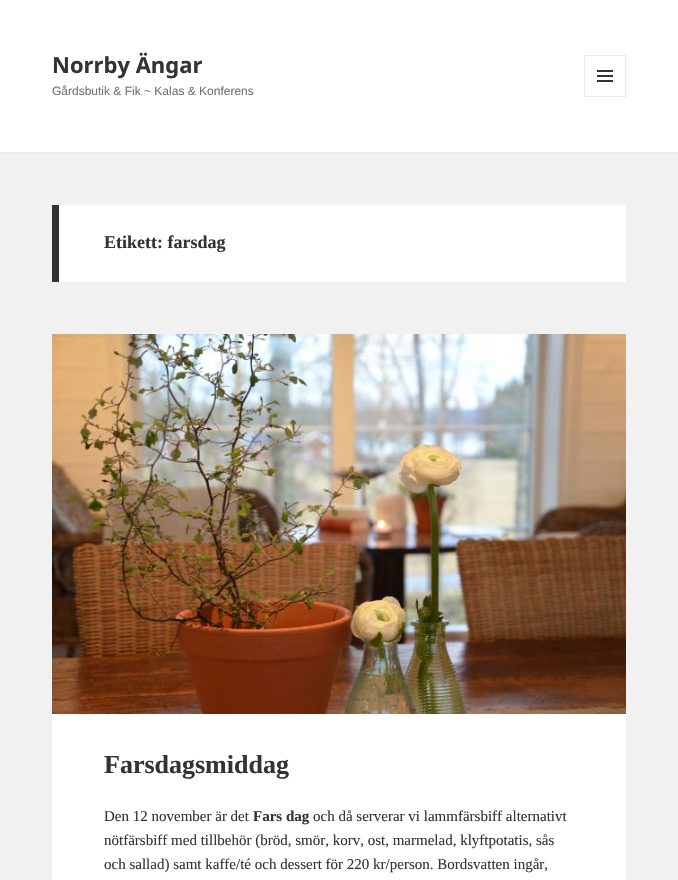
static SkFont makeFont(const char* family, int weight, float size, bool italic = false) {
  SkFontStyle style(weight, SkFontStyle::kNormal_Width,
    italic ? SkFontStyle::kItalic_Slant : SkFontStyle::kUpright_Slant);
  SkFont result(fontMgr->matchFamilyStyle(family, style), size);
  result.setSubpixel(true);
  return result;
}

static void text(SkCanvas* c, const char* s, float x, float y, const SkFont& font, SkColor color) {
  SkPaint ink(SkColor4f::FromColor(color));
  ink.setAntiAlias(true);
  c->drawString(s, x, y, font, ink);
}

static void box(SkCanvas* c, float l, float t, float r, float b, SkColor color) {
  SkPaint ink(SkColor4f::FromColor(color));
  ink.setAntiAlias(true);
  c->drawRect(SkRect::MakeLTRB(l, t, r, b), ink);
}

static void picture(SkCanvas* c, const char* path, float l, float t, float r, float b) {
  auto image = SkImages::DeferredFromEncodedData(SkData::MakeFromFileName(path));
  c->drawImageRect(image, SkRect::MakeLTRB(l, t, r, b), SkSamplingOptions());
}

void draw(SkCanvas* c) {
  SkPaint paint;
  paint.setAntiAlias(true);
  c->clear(0xfff1f1f1);
  box(c, 0, 0, 678, 152, 0xffffffff);
  box(c, 0, 152, 678, 153, 0xffebebeb);
  SkFont face1 = makeFont("Noto Sans", 700, 22);
  text(c, "Norrby Ängar", 52, 73, face1, 0xff333333);
  paint.setStyle(SkPaint::kStroke_Style);
  paint.setStrokeWidth(1);
  paint.setColor(0xffebebeb);
  c->drawRect(SkRect::MakeLTRB(584.5f, 55.5f, 625.5f, 96.5f), paint);
  picture(c, "img_01.png", 597, 70, 613, 82);
  SkFont face2 = makeFont("Liberation Sans", 400, 12);
  text(c, "Gårdsbutik & Fik ~ Kalas & Konferens", 52, 95, face2, 0xff707070);
  box(c, 59, 205, 626, 282, 0xffffffff);
  box(c, 52, 205, 59, 282, 0xff333333);
  SkFont face3 = makeFont("Liberation Serif", 700, 18);
  text(c, "Etikett: farsdag", 104, 248, face3, 0xff333333);
  box(c, 52, 714, 626, 880, 0xffffffff);
  picture(c, "img_02.png", 52, 334, 626, 714);
  SkFont face4 = makeFont("Liberation Serif", 700, 26);
  text(c, "Farsdagsmiddag", 104, 773, face4, 0xff333333);
  SkFont face5 = makeFont("Liberation Serif", 400, 15);
  text(c, "Den 12 november är det", 104, 821, face5, 0xff333333);
  SkFont face6 = makeFont("Liberation Serif", 700, 15);
  text(c, "Fars dag", 253, 821, face6, 0xff333333);
  text(c, "och då serverar vi lammfärsbiff alternativt", 313, 821, face5, 0xff333333);
  text(c, "nötfärsbiff med tillbehör (bröd, smör, korv, ost, marmelad, klyftpotatis, sås", 104, 845, face5, 0xff333333);
  text(c, "och sallad) samt kaffe/té och dessert för 220 kr/person. Bordsvatten ingår,", 104, 869, face5, 0xff333333);
}
